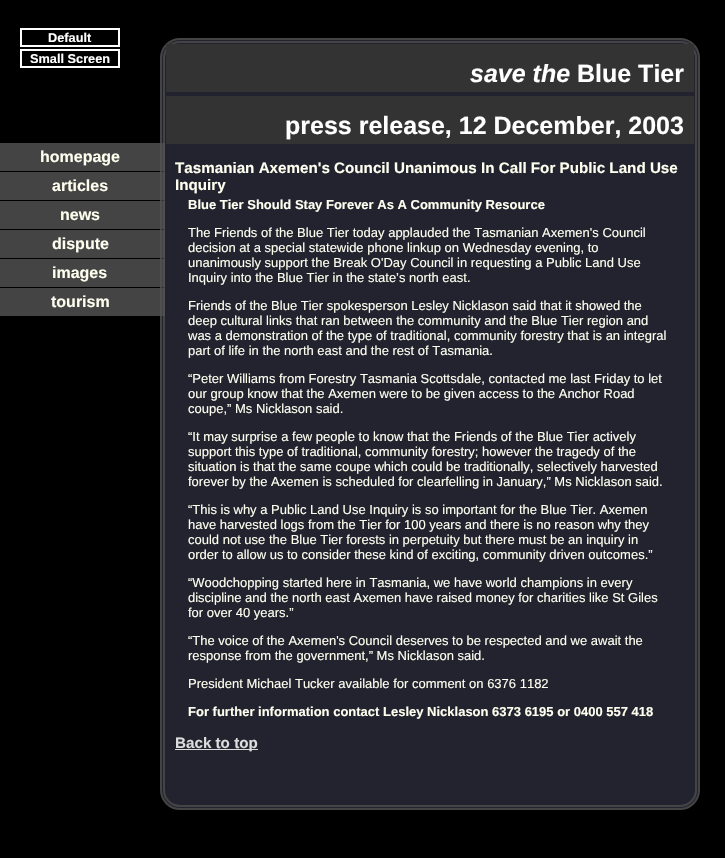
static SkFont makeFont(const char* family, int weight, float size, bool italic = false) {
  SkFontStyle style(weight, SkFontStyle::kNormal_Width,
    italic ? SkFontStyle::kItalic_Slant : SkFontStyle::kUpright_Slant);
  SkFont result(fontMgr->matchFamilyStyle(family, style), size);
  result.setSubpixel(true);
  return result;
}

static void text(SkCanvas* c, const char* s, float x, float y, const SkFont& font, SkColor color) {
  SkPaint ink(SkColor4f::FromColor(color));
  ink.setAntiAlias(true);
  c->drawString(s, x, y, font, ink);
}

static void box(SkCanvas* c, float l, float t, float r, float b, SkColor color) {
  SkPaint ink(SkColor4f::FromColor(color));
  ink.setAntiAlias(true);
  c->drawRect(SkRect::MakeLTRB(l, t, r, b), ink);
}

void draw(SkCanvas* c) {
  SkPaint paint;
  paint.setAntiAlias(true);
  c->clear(0xff000000);
  paint.setStyle(SkPaint::kStroke_Style);
  paint.setStrokeWidth(2);
  paint.setColor(0xffffffff);
  c->drawRect(SkRect::MakeLTRB(21, 29, 119, 46), paint);
  SkFont face1 = makeFont("Liberation Sans", 700, 12.75f);
  text(c, "Default", 48, 42, face1, 0xffffffff);
  c->drawRect(SkRect::MakeLTRB(21, 50, 119, 67), paint);
  text(c, "Small Screen", 30, 63, face1, 0xffffffff);
  paint.setStyle(SkPaint::kFill_Style);
  paint.setColor(0xff22232f);
  c->drawRoundRect(SkRect::MakeLTRB(161, 39, 699, 809), 19, 19, paint);
  paint.setStyle(SkPaint::kStroke_Style);
  paint.setColor(0xff444444);
  c->drawRoundRect(SkRect::MakeLTRB(161, 39, 699, 809), 19, 19, paint);
  box(c, 0, 143, 163, 171, 0xff444444);
  box(c, 160, 143, 162, 171, 0xff505050);
  c->drawRoundRect(SkRect::MakeLTRB(164, 42, 696, 806), 16, 16, paint);
  box(c, 163, 143, 165, 171, 0xff505050);
  SkFont face2 = makeFont("Liberation Sans", 700, 16);
  text(c, "homepage", 40, 162, face2, 0xfffffff0);
  box(c, 0, 172, 163, 200, 0xff444444);
  box(c, 160, 172, 162, 200, 0xff505050);
  box(c, 163, 172, 165, 200, 0xff505050);
  text(c, "articles", 52, 191, face2, 0xfffffff0);
  box(c, 0, 201, 163, 229, 0xff444444);
  box(c, 160, 201, 162, 229, 0xff505050);
  box(c, 163, 201, 165, 229, 0xff505050);
  text(c, "news", 60, 220, face2, 0xfffffff0);
  box(c, 0, 230, 163, 258, 0xff444444);
  box(c, 160, 230, 162, 258, 0xff505050);
  box(c, 163, 230, 165, 258, 0xff505050);
  text(c, "dispute", 52, 249, face2, 0xfffffff0);
  box(c, 0, 259, 163, 287, 0xff444444);
  box(c, 160, 259, 162, 287, 0xff505050);
  box(c, 163, 259, 165, 287, 0xff505050);
  text(c, "images", 52, 278, face2, 0xfffffff0);
  box(c, 0, 288, 163, 316, 0xff444444);
  box(c, 160, 288, 162, 316, 0xff505050);
  box(c, 163, 288, 165, 316, 0xff505050);
  text(c, "tourism", 51, 307, face2, 0xfffffff0);
  box(c, 166, 44, 694, 92, 0xff333333);
  SkFont face3 = makeFont("Liberation Sans", 700, 25, true);
  text(c, "save the", 470, 82, face3, 0xffffffff);
  SkFont face4 = makeFont("Liberation Sans", 700, 25);
  text(c, "Blue Tier", 577, 82, face4, 0xffffffff);
  box(c, 166, 96, 694, 144, 0xff333333);
  text(c, "press release, 12 December, 2003", 285, 134, face4, 0xffffffff);
  SkFont face5 = makeFont("Liberation Sans", 700, 15.2f);
  text(c, "Tasmanian Axemen's Council Unanimous In Call For Public Land Use", 175, 173, face5, 0xfffffff0);
  text(c, "Inquiry", 175, 190, face5, 0xfffffff0);
  SkFont face6 = makeFont("Liberation Sans", 700, 13);
  text(c, "Blue Tier Should Stay Forever As A Community Resource", 188, 209, face6, 0xfffffff0);
  SkFont face7 = makeFont("Liberation Sans", 400, 13);
  text(c, "The Friends of the Blue Tier today applauded the Tasmanian Axemen's Council", 188, 237, face7, 0xfffffff0);
  text(c, "decision at a special statewide phone linkup on Wednesday evening, to", 188, 252, face7, 0xfffffff0);
  text(c, "unanimously support the Break O'Day Council in requesting a Public Land Use", 188, 267, face7, 0xfffffff0);
  text(c, "Inquiry into the Blue Tier in the state’s north east.", 188, 282, face7, 0xfffffff0);
  text(c, "Friends of the Blue Tier spokesperson Lesley Nicklason said that it showed the", 188, 310, face7, 0xfffffff0);
  text(c, "deep cultural links that ran between the community and the Blue Tier region and", 188, 325, face7, 0xfffffff0);
  text(c, "was a demonstration of the type of traditional, community forestry that is an integral", 188, 340, face7, 0xfffffff0);
  text(c, "part of life in the north east and the rest of Tasmania.", 188, 355, face7, 0xfffffff0);
  text(c, "“Peter Williams from Forestry Tasmania Scottsdale, contacted me last Friday to let", 188, 383, face7, 0xfffffff0);
  text(c, "our group know that the Axemen were to be given access to the Anchor Road", 188, 398, face7, 0xfffffff0);
  text(c, "coupe,” Ms Nicklason said.", 188, 413, face7, 0xfffffff0);
  text(c, "“It may surprise a few people to know that the Friends of the Blue Tier actively", 188, 441, face7, 0xfffffff0);
  text(c, "support this type of traditional, community forestry; however the tragedy of the", 188, 456, face7, 0xfffffff0);
  text(c, "situation is that the same coupe which could be traditionally, selectively harvested", 188, 471, face7, 0xfffffff0);
  text(c, "forever by the Axemen is scheduled for clearfelling in January,” Ms Nicklason said.", 188, 486, face7, 0xfffffff0);
  text(c, "“This is why a Public Land Use Inquiry is so important for the Blue Tier. Axemen", 188, 514, face7, 0xfffffff0);
  text(c, "have harvested logs from the Tier for 100 years and there is no reason why they", 188, 529, face7, 0xfffffff0);
  text(c, "could not use the Blue Tier forests in perpetuity but there must be an inquiry in", 188, 544, face7, 0xfffffff0);
  text(c, "order to allow us to consider these kind of exciting, community driven outcomes.”", 188, 559, face7, 0xfffffff0);
  text(c, "“Woodchopping started here in Tasmania, we have world champions in every", 188, 587, face7, 0xfffffff0);
  text(c, "discipline and the north east Axemen have raised money for charities like St Giles", 188, 602, face7, 0xfffffff0);
  text(c, "for over 40 years.”", 188, 617, face7, 0xfffffff0);
  text(c, "“The voice of the Axemen's Council deserves to be respected and we await the", 188, 645, face7, 0xfffffff0);
  text(c, "response from the government,” Ms Nicklason said.", 188, 660, face7, 0xfffffff0);
  text(c, "President Michael Tucker available for comment on 6376 1182", 188, 688, face7, 0xfffffff0);
  text(c, "For further information contact Lesley Nicklason 6373 6195 or 0400 557 418", 188, 716, face6, 0xfffffff0);
  box(c, 175, 749, 258, 750, 0xffdddddd);
  text(c, "Back to top", 175, 748, face5, 0xffdddddd);
}
